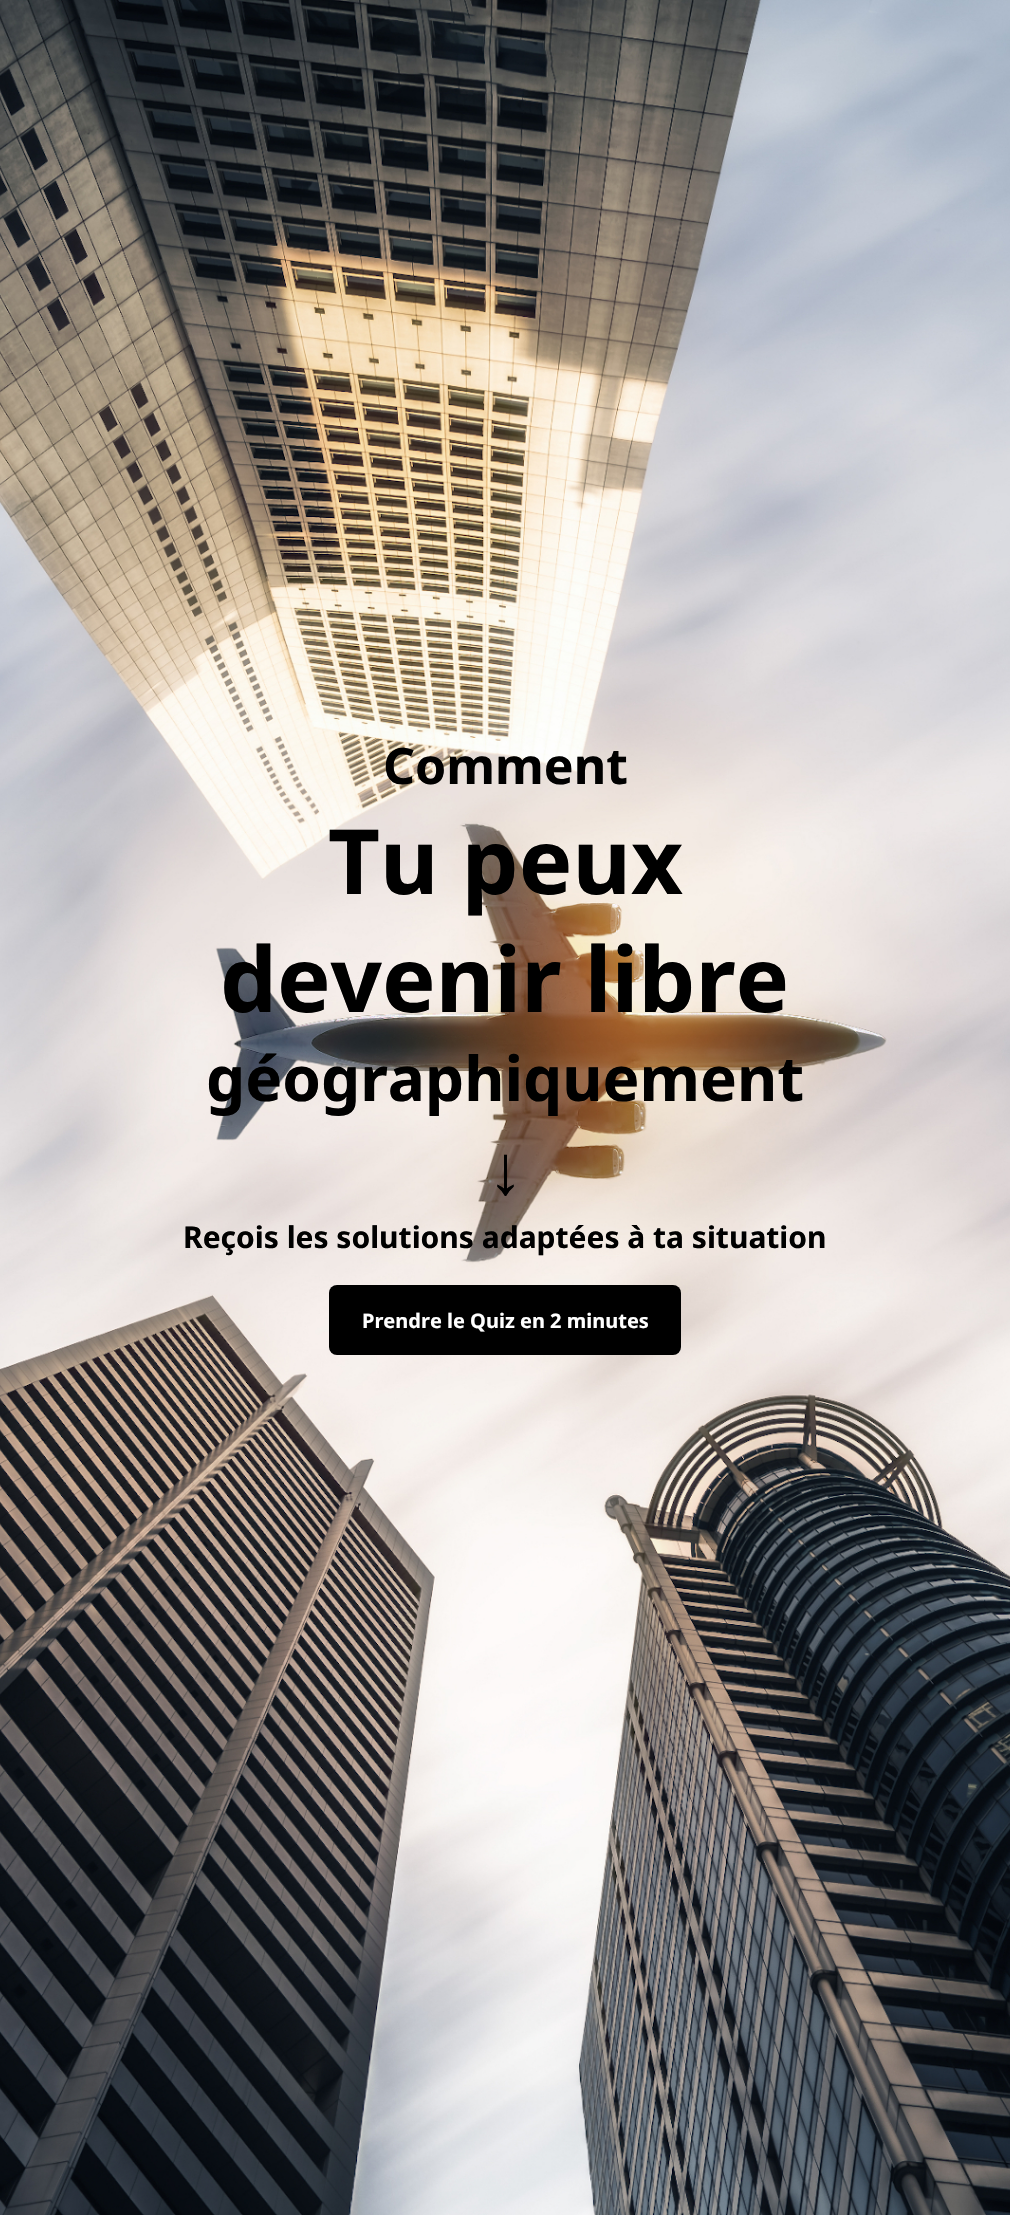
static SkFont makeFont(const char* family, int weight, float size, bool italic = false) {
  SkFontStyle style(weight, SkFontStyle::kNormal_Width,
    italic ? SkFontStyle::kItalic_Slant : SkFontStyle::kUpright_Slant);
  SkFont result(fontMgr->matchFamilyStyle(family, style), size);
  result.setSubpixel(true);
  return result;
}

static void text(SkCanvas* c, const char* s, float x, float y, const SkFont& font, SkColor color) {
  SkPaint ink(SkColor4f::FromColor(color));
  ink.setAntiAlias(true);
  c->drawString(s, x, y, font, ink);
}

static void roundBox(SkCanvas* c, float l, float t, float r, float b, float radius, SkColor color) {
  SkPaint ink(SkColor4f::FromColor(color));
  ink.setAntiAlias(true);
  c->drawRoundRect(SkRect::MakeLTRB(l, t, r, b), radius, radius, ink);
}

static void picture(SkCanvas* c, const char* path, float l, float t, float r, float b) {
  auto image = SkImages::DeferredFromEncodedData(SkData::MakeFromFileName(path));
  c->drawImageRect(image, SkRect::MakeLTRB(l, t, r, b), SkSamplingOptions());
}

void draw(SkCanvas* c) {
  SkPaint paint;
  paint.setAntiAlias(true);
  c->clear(0xffffffff);
  picture(c, "img_01.png", 0, 0, 1010, 2215);
  SkFont face1 = makeFont("Noto Sans", 700, 50);
  text(c, "Comment", 383, 784, face1, 0xff000000);
  SkFont face2 = makeFont("Noto Sans", 700, 90);
  text(c, "Tu peux", 328, 894, face2, 0xff000000);
  text(c, "devenir libre", 220, 1012, face2, 0xff000000);
  SkFont face3 = makeFont("Noto Sans", 700, 62);
  text(c, "géographiquement", 206, 1101, face3, 0xff000000);
  SkFont face4 = makeFont("Liberation Sans", 700, 70);
  text(c, "↓", 488, 1194, face4, 0xff000000);
  SkFont face5 = makeFont("Noto Sans", 700, 30);
  text(c, "Reçois les solutions adaptées à ta situation", 183, 1248, face5, 0xff000000);
  roundBox(c, 329, 1285, 681, 1355, 8, 0xff000000);
  SkFont face6 = makeFont("Noto Sans", 700, 20);
  text(c, "Prendre le Quiz en 2 minutes", 362, 1328, face6, 0xffffffff);
}
